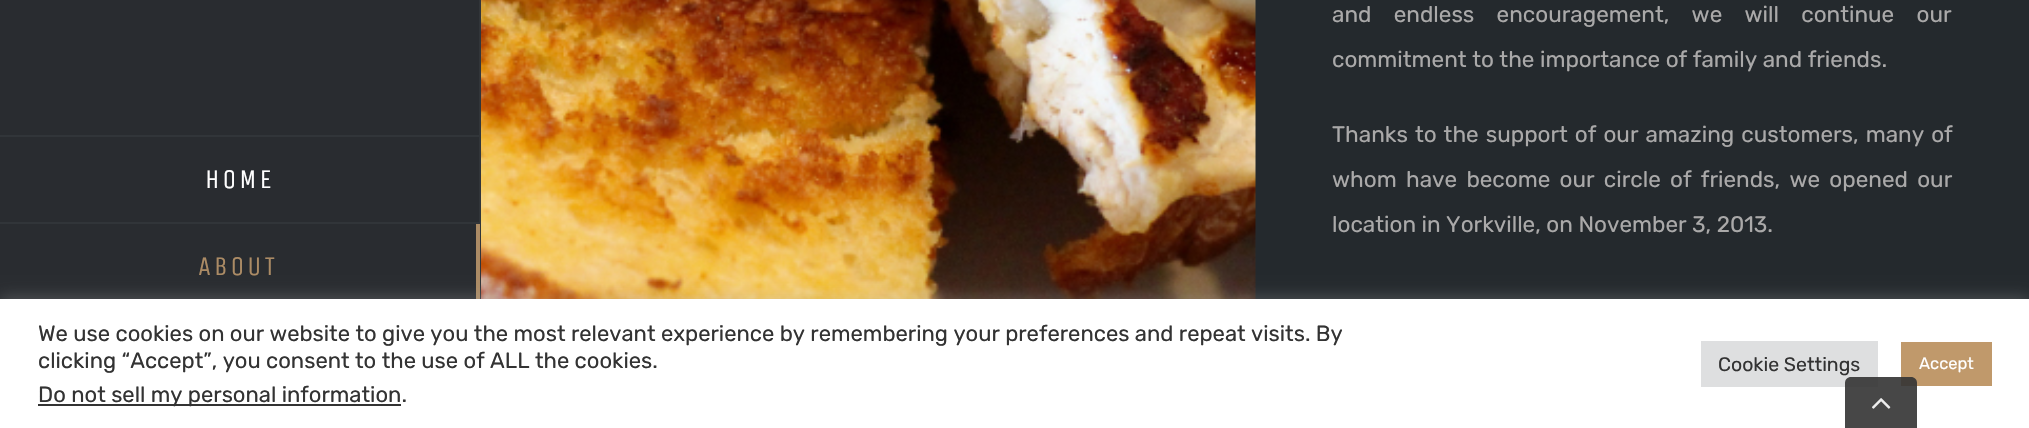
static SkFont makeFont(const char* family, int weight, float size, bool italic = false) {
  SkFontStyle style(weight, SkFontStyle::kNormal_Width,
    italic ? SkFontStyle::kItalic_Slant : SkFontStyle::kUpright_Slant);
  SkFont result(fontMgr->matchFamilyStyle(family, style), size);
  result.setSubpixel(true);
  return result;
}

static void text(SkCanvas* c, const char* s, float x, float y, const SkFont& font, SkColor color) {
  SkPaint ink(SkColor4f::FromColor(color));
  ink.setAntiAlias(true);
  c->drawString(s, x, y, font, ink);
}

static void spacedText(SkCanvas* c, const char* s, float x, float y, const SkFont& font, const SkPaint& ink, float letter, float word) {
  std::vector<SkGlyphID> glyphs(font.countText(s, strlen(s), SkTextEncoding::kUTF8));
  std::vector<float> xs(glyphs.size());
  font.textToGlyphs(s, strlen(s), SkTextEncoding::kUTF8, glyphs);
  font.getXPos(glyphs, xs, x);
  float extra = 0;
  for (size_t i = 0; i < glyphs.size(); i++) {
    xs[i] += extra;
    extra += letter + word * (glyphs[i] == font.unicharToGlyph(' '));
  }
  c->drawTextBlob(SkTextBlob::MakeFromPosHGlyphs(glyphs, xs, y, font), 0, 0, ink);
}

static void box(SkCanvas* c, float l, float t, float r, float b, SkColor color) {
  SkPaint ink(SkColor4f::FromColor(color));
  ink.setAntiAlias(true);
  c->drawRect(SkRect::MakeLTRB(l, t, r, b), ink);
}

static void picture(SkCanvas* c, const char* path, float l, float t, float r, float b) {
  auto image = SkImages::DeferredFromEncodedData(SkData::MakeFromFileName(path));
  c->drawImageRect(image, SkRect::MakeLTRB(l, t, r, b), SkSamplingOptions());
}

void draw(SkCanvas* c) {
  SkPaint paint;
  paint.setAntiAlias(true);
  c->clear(0xff24292d);
  box(c, 0, 0, 479, 299, 0xff292c30);
  box(c, 479, 0, 481, 299, 0xff313539);
  box(c, 0, 135, 480, 137, 0xff313539);
  box(c, 0, 222, 480, 224, 0xff313539);
  SkFont face1 = makeFont("Unica One", 400, 27);
  paint.setColor(0xffffffff);
  spacedText(c, "HOME", 205, 188, face1, paint, 3, 0);
  paint.setColor(0xffab8b65);
  c->drawPath(SkPathBuilder().moveTo(480, 224).lineTo(480, 310).lineTo(476, 309).lineTo(476, 224).close().detach(), paint);
  spacedText(c, "ABOUT", 198, 275, face1, paint, 3, 0);
  picture(c, "img_01.png", 481, 0, 1256, 299);
  SkFont face2 = makeFont("Rubik", 400, 22.5f);
  paint.setColor(0xffaaa9a9);
  spacedText(c, "and endless encouragement, we will continue our", 1332, 22, face2, paint, 0, 16.75f);
  text(c, "commitment to the importance of family and friends.", 1332, 67, face2, 0xffaaa9a9);
  spacedText(c, "Thanks to the support of our amazing customers, many of", 1332, 142, face2, paint, 0, 1.5f);
  spacedText(c, "whom have become our circle of friends, we opened our", 1332, 187, face2, paint, 0, 3.75f);
  text(c, "location in Yorkville, on November 3, 2013.", 1332, 232, face2, 0xffaaa9a9);
  paint.setColor(0x4dacabab);
  paint.setMaskFilter(SkMaskFilter::MakeBlur(kNormal_SkBlurStyle, 7.5f));
  c->drawRect(SkRect::MakeLTRB(0, 297, 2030, 428), paint);
  paint.setMaskFilter(nullptr);
  box(c, 0, 299, 2029, 428, 0xffffffff);
  SkFont face3 = makeFont("Rubik", 400, 22);
  text(c, "We use cookies on our website to give you the most relevant experience by remembering your preferences and repeat visits. By", 38, 341, face3, 0xff333333);
  text(c, "clicking “Accept”, you consent to the use of ALL the cookies.", 38, 368, face3, 0xff333333);
  box(c, 38, 404, 401, 406, 0xff333333);
  text(c, "Do not sell my personal information.", 38, 402, face3, 0xff333333);
  box(c, 1701, 341, 1878, 387, 0xffdedfe0);
  SkFont face4 = makeFont("Rubik", 400, 19.5f);
  text(c, "Cookie Settings", 1718, 371, face4, 0xff333333);
  box(c, 1901, 342, 1992, 386, 0xffc0996b);
  SkFont face5 = makeFont("Rubik", 400, 16.5f);
  text(c, "Accept", 1919, 369, face5, 0xffffffff);
  paint.setColor(0xe6333333);
  c->drawPath(SkPathBuilder().moveTo(1851, 377).lineTo(1911, 377).cubicTo(1914.5f, 377, 1917, 379.5f, 1917, 383).lineTo(1917, 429).lineTo(1845, 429).lineTo(1845, 383).cubicTo(1845, 379.5f, 1847.5f, 377, 1851, 377).close().detach(), paint);
  picture(c, "img_02.png", 1872, 398, 1891, 409);
}
